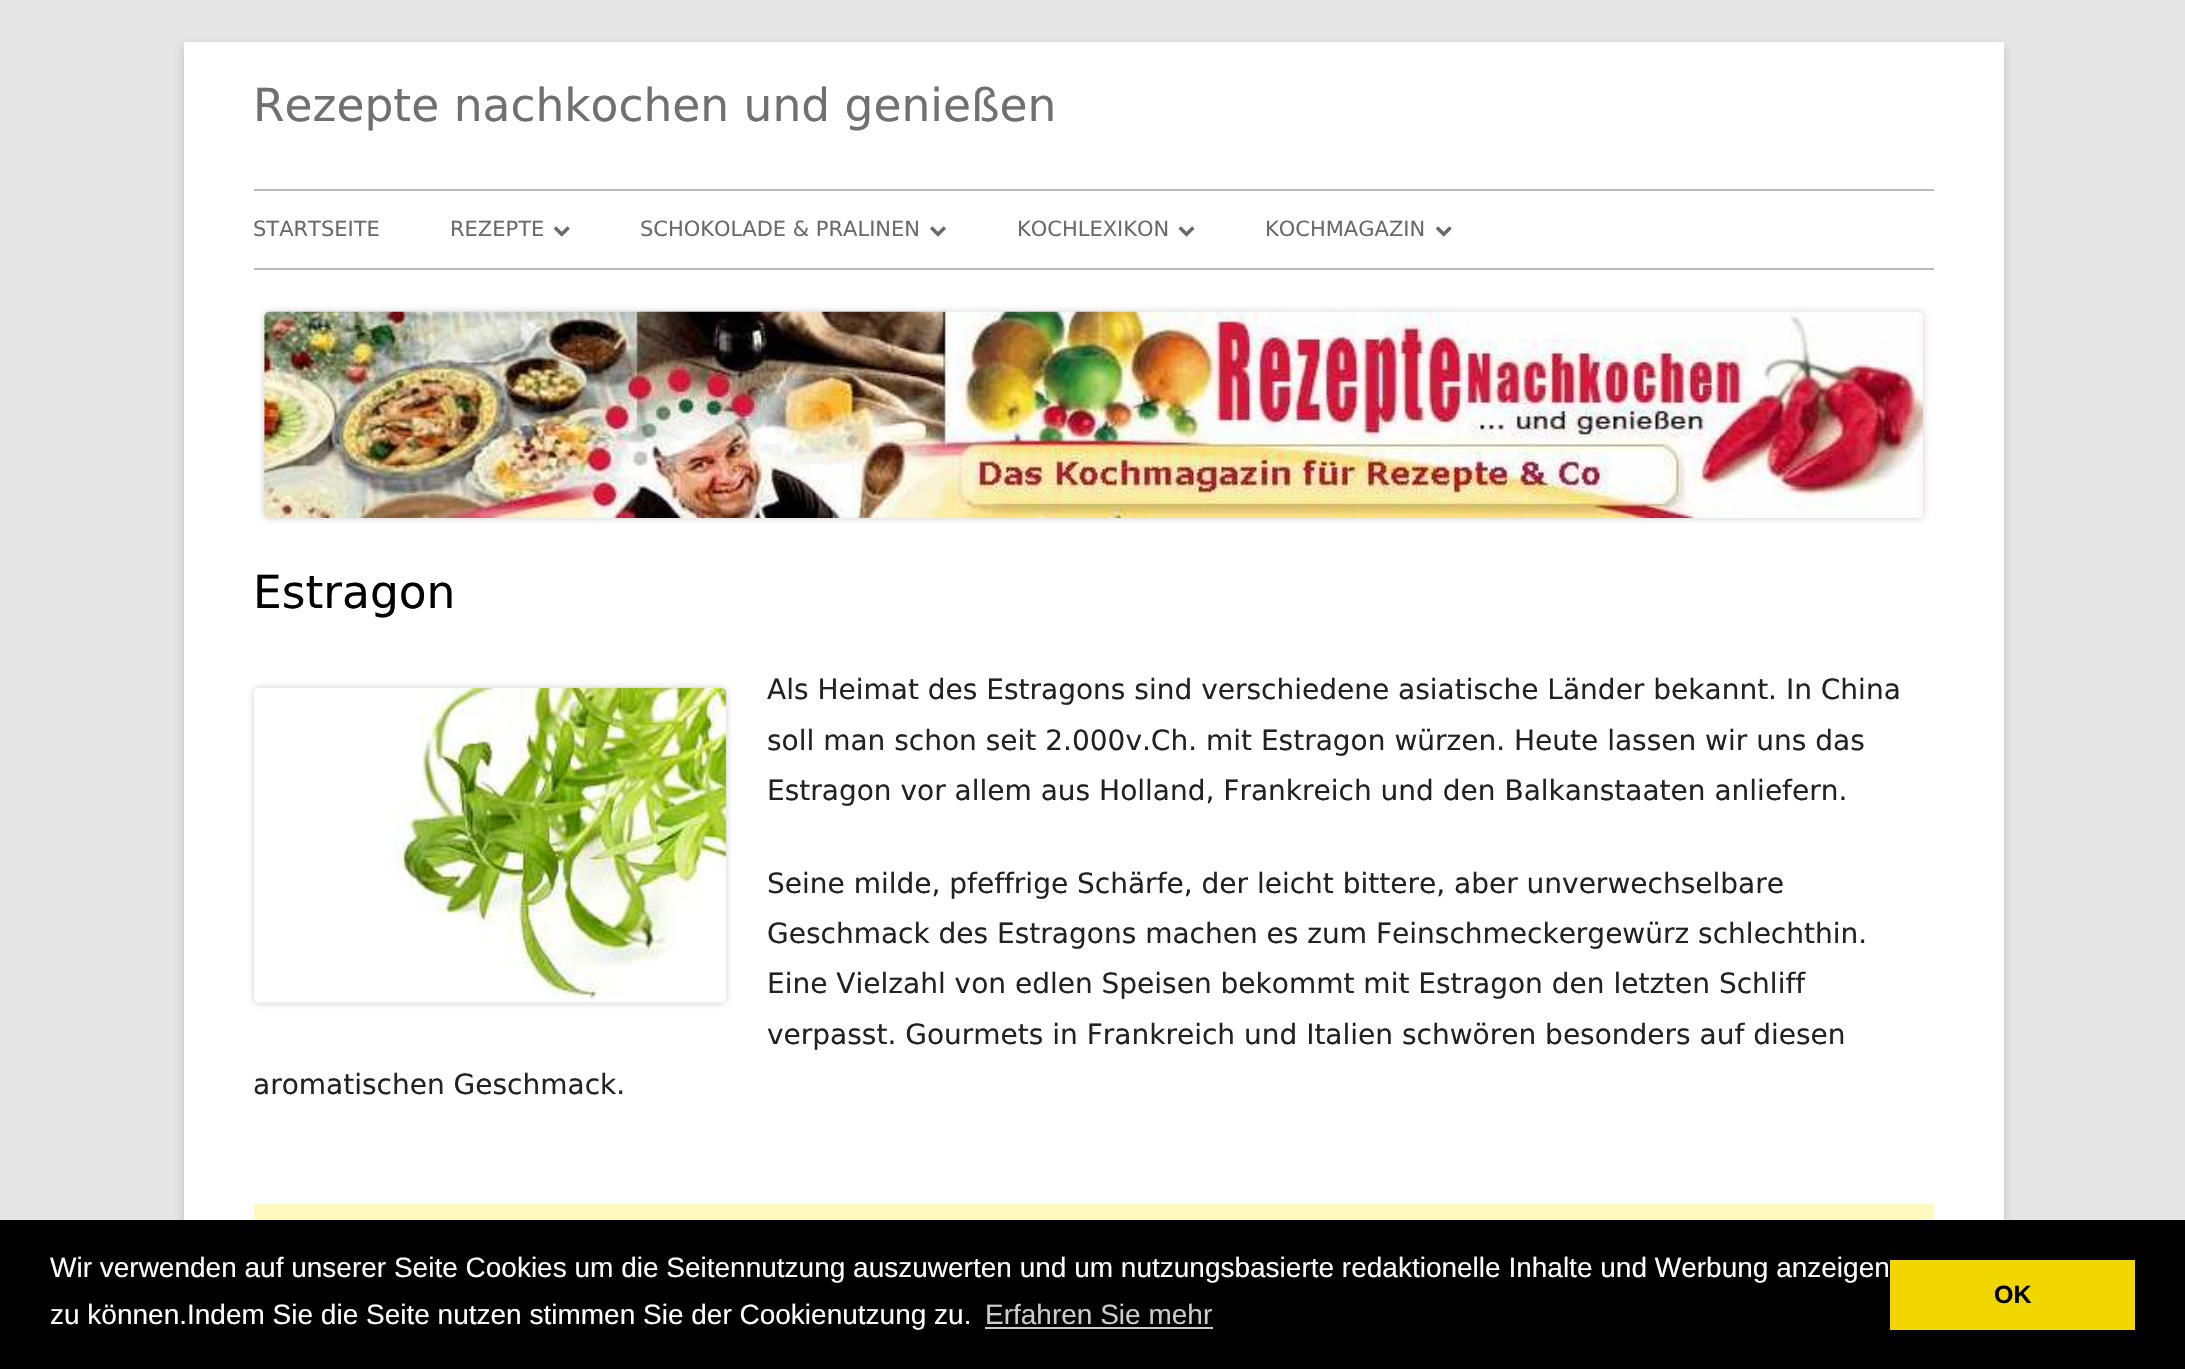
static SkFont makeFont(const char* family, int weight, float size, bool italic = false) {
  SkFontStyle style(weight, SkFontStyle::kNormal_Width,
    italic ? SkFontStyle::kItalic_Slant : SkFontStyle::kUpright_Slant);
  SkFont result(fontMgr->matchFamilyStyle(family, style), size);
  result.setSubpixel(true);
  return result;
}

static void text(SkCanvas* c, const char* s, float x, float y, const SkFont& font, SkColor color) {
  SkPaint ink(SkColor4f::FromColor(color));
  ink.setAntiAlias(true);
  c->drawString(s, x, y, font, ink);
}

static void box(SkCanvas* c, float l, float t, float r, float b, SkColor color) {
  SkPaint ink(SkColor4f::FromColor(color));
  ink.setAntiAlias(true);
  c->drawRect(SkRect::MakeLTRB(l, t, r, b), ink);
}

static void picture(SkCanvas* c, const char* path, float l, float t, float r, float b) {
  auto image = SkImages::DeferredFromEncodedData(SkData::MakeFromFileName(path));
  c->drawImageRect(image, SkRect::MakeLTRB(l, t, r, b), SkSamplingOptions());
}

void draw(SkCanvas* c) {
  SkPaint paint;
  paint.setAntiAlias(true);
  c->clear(0xffe6e6e6);
  paint.setColor(0x4d646464);
  paint.setMaskFilter(SkMaskFilter::MakeBlur(kNormal_SkBlurStyle, 5));
  c->drawRect(SkRect::MakeLTRB(184, 46, 2004, 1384), paint);
  paint.setMaskFilter(nullptr);
  box(c, 184, 42, 2004, 1220, 0xffffffff);
  SkFont face1 = makeFont("DejaVu Sans", 400, 45.5f);
  text(c, "Rezepte nachkochen und genießen", 253, 121, face1, 0xff707070);
  box(c, 254, 189, 1934, 191, 0xffbbbbbb);
  box(c, 254, 268, 1934, 270, 0xffbbbbbb);
  SkFont face2 = makeFont("DejaVu Sans", 400, 21);
  text(c, "STARTSEITE", 253, 236, face2, 0xff6a6a6a);
  text(c, "REZEPTE", 450, 236, face2, 0xff6a6a6a);
  picture(c, "img_01.png", 553, 226, 570, 237);
  text(c, "SCHOKOLADE & PRALINEN", 640, 236, face2, 0xff6a6a6a);
  picture(c, "img_02.png", 930, 226, 946, 237);
  text(c, "KOCHLEXIKON", 1017, 236, face2, 0xff6a6a6a);
  picture(c, "img_03.png", 1178, 226, 1195, 237);
  text(c, "KOCHMAGAZIN", 1265, 236, face2, 0xff6a6a6a);
  picture(c, "img_01.png", 1435, 226, 1452, 237);
  paint.setColor(0x33000000);
  paint.setMaskFilter(SkMaskFilter::MakeBlur(kNormal_SkBlurStyle, 3.5f));
  c->drawRoundRect(SkRect::MakeLTRB(264, 312, 1923, 518), 5, 5, paint);
  paint.setMaskFilter(nullptr);
  picture(c, "img_04.png", 264, 311, 1923, 518);
  text(c, "Estragon", 253, 608, face1, 0xff000000);
  paint.setMaskFilter(SkMaskFilter::MakeBlur(kNormal_SkBlurStyle, 3.5f));
  c->drawRoundRect(SkRect::MakeLTRB(254, 688, 726, 1003), 5, 5, paint);
  paint.setMaskFilter(nullptr);
  picture(c, "img_05.png", 254, 687, 727, 1003);
  SkFont face3 = makeFont("DejaVu Sans", 400, 28);
  text(c, "Als Heimat des Estragons sind verschiedene asiatische Länder bekannt. In China", 767, 699, face3, 0xff222222);
  text(c, "soll man schon seit 2.000v.Ch. mit Estragon würzen. Heute lassen wir uns das", 767, 750, face3, 0xff222222);
  text(c, "Estragon vor allem aus Holland, Frankreich und den Balkanstaaten anliefern.", 767, 800, face3, 0xff222222);
  text(c, "Seine milde, pfeffrige Schärfe, der leicht bittere, aber unverwechselbare", 767, 893, face3, 0xff222222);
  text(c, "Geschmack des Estragons machen es zum Feinschmeckergewürz schlechthin.", 767, 943, face3, 0xff222222);
  text(c, "Eine Vielzahl von edlen Speisen bekommt mit Estragon den letzten Schliff", 767, 993, face3, 0xff222222);
  text(c, "verpasst. Gourmets in Frankreich und Italien schwören besonders auf diesen", 767, 1044, face3, 0xff222222);
  text(c, "aromatischen Geschmack.", 253, 1094, face3, 0xff222222);
  box(c, 254, 1204, 1934, 1220, 0xfffff9c0);
  box(c, 0, 1220, 2185, 1369, 0xff000000);
  SkFont face4 = makeFont("Liberation Sans", 400, 28);
  text(c, "Wir verwenden auf unserer Seite Cookies um die Seitennutzung auszuwerten und um nutzungsbasierte redaktionelle Inhalte und Werbung anzeigen", 50, 1277, face4, 0xffffffff);
  text(c, "zu können.Indem Sie die Seite nutzen stimmen Sie der Cookienutzung zu.", 50, 1324, face4, 0xffffffff);
  text(c, "Erfahren Sie mehr", 985, 1324, face4, 0xffcccccc);
  box(c, 985, 1327, 1213, 1329, 0xffcccccc);
  box(c, 1890, 1260, 2135, 1330, 0xfff1d600);
  SkFont face5 = makeFont("Liberation Sans", 700, 25);
  text(c, "OK", 1994, 1303, face5, 0xff000000);
}
